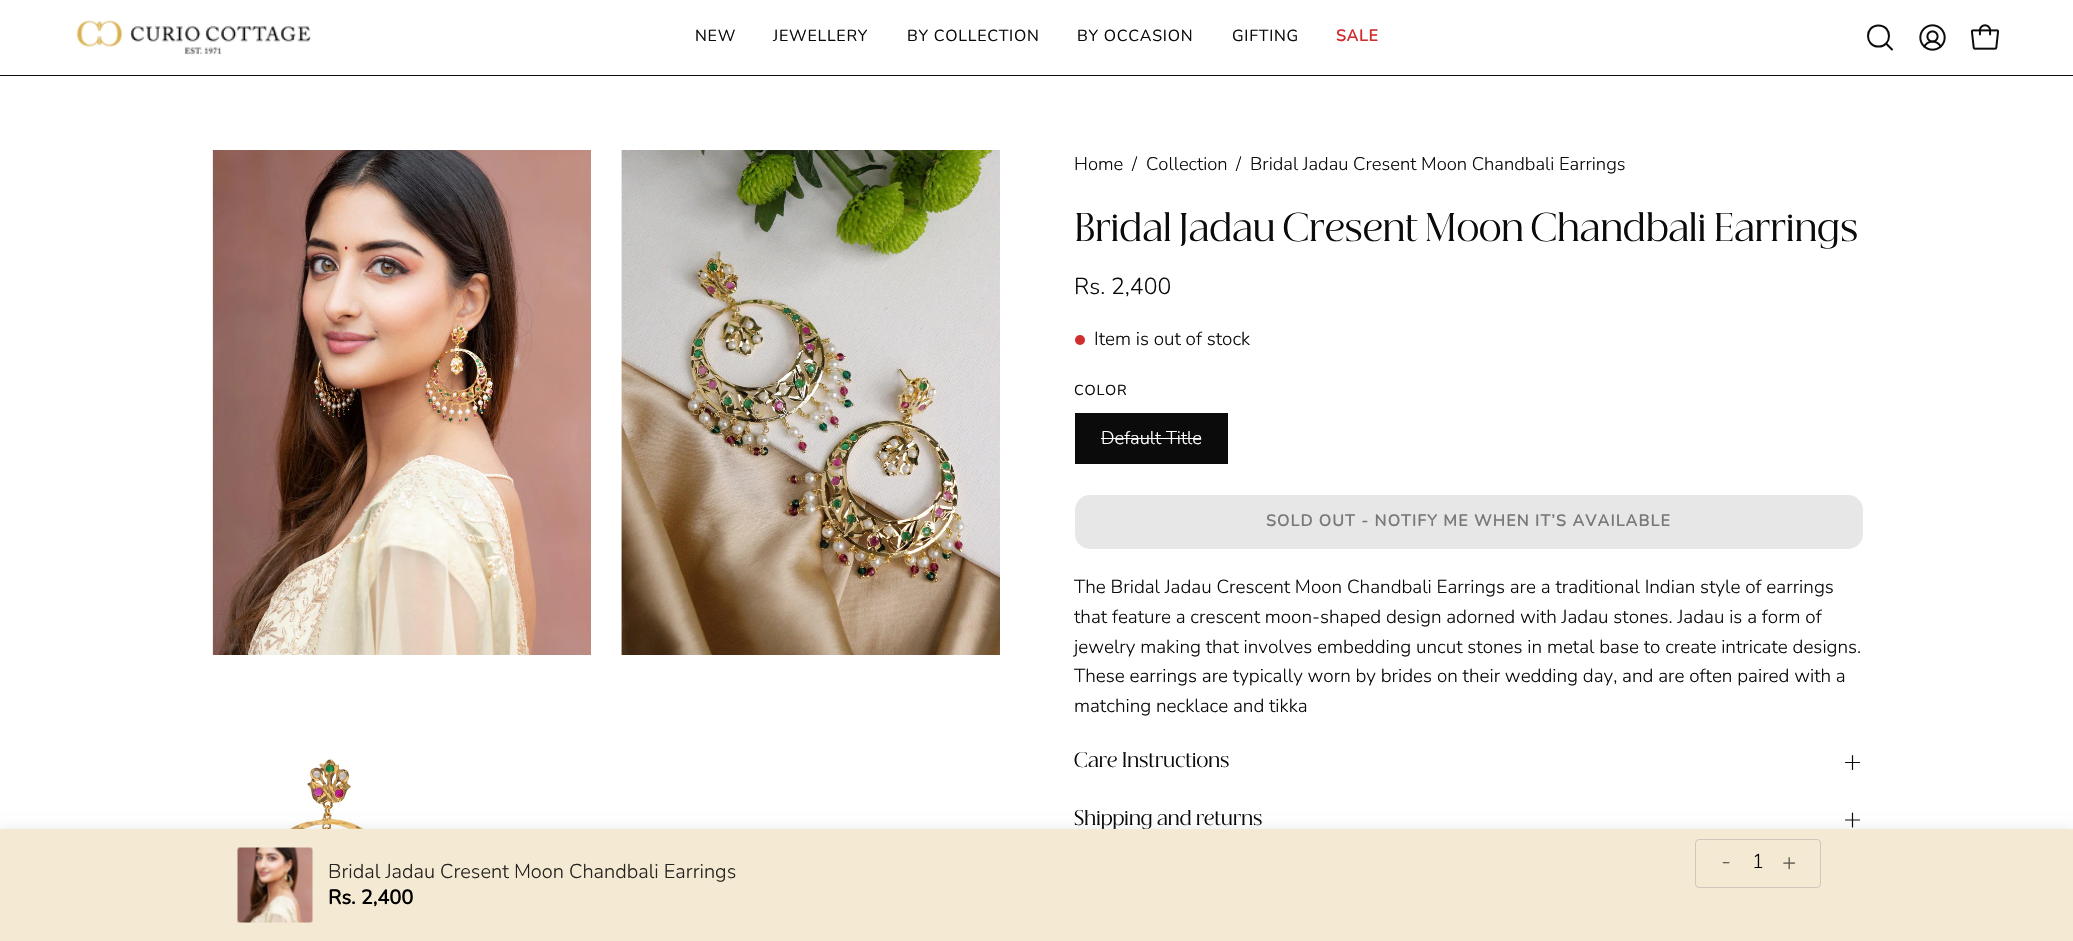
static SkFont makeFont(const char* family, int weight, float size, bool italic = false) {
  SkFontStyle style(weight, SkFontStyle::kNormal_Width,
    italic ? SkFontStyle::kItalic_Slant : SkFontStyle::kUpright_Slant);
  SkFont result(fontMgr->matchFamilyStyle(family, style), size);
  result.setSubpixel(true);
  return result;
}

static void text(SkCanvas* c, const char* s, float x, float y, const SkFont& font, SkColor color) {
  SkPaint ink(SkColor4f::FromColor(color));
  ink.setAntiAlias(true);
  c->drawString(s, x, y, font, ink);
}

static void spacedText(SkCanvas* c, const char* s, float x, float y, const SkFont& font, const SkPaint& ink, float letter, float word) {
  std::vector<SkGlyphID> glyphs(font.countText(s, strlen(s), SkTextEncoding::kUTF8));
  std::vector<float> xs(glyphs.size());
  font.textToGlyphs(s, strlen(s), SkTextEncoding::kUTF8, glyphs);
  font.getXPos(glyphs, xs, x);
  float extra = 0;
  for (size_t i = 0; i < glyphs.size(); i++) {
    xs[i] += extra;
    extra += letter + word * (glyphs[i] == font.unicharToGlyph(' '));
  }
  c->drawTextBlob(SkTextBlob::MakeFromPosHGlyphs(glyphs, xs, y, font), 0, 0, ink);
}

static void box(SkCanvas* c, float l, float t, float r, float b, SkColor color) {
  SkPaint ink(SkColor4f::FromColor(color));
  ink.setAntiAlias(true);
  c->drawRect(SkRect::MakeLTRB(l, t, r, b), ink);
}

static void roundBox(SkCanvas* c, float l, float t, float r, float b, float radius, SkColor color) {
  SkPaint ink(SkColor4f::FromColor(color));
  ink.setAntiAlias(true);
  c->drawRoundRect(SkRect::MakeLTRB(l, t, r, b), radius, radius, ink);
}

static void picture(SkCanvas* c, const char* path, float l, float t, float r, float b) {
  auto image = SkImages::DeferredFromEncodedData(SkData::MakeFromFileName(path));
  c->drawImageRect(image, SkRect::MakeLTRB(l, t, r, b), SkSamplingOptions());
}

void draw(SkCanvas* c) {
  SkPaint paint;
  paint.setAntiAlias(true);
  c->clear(0xffffffff);
  picture(c, "img_01.png", 76, 20, 311, 55);
  SkFont face1 = makeFont("Nunito", 400, 16);
  paint.setColor(0xff0b0b0b);
  spacedText(c, "NEW", 695, 41, face1, paint, 0.75f, 0);
  spacedText(c, "JEWELLERY", 773, 41, face1, paint, 0.75f, 0);
  spacedText(c, "BY COLLECTION", 907, 41, face1, paint, 0.75f, 0);
  spacedText(c, "BY OCCASION", 1077, 41, face1, paint, 0.75f, 0);
  spacedText(c, "GIFTING", 1232, 41, face1, paint, 0.75f, 0);
  SkFont face2 = makeFont("Nunito", 700, 16);
  paint.setColor(0xffd02e2e);
  spacedText(c, "SALE", 1336, 41, face2, paint, 0.75f, 0);
  paint.setStyle(SkPaint::kStroke_Style);
  paint.setStrokeWidth(2);
  paint.setStrokeCap(SkPaint::kRound_Cap);
  paint.setStrokeJoin(SkPaint::kRound_Join);
  paint.setColor(0xff0b0b0b);
  c->drawPath(SkPathBuilder().moveTo(1878.5f, 46.5f).cubicTo(1892.5f, 46.5f, 1892.5f, 25.5f, 1878.5f, 25.5f).cubicTo(1864.5f, 25.5f, 1864.5f, 46.5f, 1878.5f, 46.5f).close().moveTo(1886, 43.5f).lineTo(1892, 49.5f).detach(), paint);
  picture(c, "img_02.png", 1919, 24, 1946, 51);
  picture(c, "img_03.png", 1970, 24, 2000, 50);
  paint.setStyle(SkPaint::kFill_Style);
  c->drawPath(SkPathBuilder().moveTo(0, 75).lineTo(0, 76).lineTo(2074, 76).lineTo(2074, 1).lineTo(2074, 75).close().detach(), paint);
  picture(c, "img_04.png", 212, 150, 591, 655);
  picture(c, "img_05.png", 621, 150, 1000, 655);
  picture(c, "img_06.png", 246, 757, 533, 829);
  SkFont face3 = makeFont("Nunito", 300, 18.4f);
  text(c, "Home", 1074, 170, face3, 0xff0b0b0b);
  text(c, "/", 1132, 170, face3, 0xff0b0b0b);
  text(c, "Collection", 1146, 170, face3, 0xff0b0b0b);
  text(c, "/", 1236, 170, face3, 0xff0b0b0b);
  text(c, "Bridal Jadau Cresent Moon Chandbali Earrings", 1250, 170, face3, 0xff0b0b0b);
  SkFont face4 = makeFont("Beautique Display", 400, 36);
  text(c, "Bridal Jadau Cresent Moon Chandbali Earrings", 1074, 241, face4, 0xff0b0b0b);
  SkFont face5 = makeFont("Nunito", 300, 23);
  text(c, "Rs. 2,400", 1074, 294, face5, 0xff0b0b0b);
  paint.setColor(0xffd02e2e);
  c->drawCircle(1080, 340, 5, paint);
  SkFont face6 = makeFont("Nunito", 300, 18.9f);
  text(c, "Item is out of stock", 1094, 345, face6, 0xff0b0b0b);
  SkFont face7 = makeFont("Nunito", 400, 14.5f);
  paint.setColor(0xff0b0b0b);
  spacedText(c, "COLOR", 1074, 395, face7, paint, 0.75f, 0);
  box(c, 1075, 413, 1228, 464, 0xff0b0b0b);
  text(c, "Default Title", 1101, 444, face3, 0xffffffff);
  box(c, 1101, 438, 1201, 439, 0xffffffff);
  roundBox(c, 1075, 495, 1863, 549, 15, 0xffe7e7e7);
  paint.setColor(0xff797979);
  spacedText(c, "SOLD OUT - NOTIFY ME WHEN IT’S AVAILABLE", 1266, 526, face2, paint, 1.2f, 0);
  text(c, "The Bridal Jadau Crescent Moon Chandbali Earrings are a traditional Indian style of earrings", 1074, 593, face6, 0xff0b0b0b);
  text(c, "that feature a crescent moon-shaped design adorned with Jadau stones. Jadau is a form of", 1074, 623, face6, 0xff0b0b0b);
  text(c, "jewelry making that involves embedding uncut stones in metal base to create intricate designs.", 1074, 653, face6, 0xff0b0b0b);
  text(c, "These earrings are typically worn by brides on their wedding day, and are often paired with a", 1074, 682, face6, 0xff0b0b0b);
  text(c, "matching necklace and tikka", 1074, 712, face6, 0xff0b0b0b);
  SkFont face8 = makeFont("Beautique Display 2", 400, 18.9f);
  text(c, "Care Instructions", 1074, 767, face8, 0xff0b0b0b);
  paint.setStyle(SkPaint::kStroke_Style);
  paint.setStrokeWidth(1.2f);
  paint.setColor(0xff0b0b0b);
  c->drawPath(SkPathBuilder().moveTo(1845.5f, 762.5f).lineTo(1859.5f, 762.5f).moveTo(1852.5f, 755.5f).lineTo(1852.5f, 769.5f).detach(), paint);
  text(c, "Shipping and returns", 1074, 825, face8, 0xff0b0b0b);
  c->drawPath(SkPathBuilder().moveTo(1845.5f, 820).lineTo(1859.5f, 820).moveTo(1852.5f, 813).lineTo(1852.5f, 827).detach(), paint);
  paint.setStyle(SkPaint::kFill_Style);
  paint.setColor(0x17000000);
  paint.setMaskFilter(SkMaskFilter::MakeBlur(kNormal_SkBlurStyle, 6));
  c->drawRect(SkRect::MakeLTRB(0, 829, 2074, 941), paint);
  paint.setMaskFilter(nullptr);
  box(c, 0, 829, 2073, 941, 0xfff4e9d3);
  picture(c, "img_07.png", 237, 847, 313, 923);
  SkFont face9 = makeFont("Nunito", 300, 20);
  text(c, "Bridal Jadau Cresent Moon Chandbali Earrings", 328, 878, face9, 0xff252320);
  SkFont face10 = makeFont("Nunito", 700, 20);
  text(c, "Rs. 2,400", 328, 904, face10, 0xff000000);
  paint.setStyle(SkPaint::kStroke_Style);
  paint.setStrokeWidth(1);
  paint.setStrokeCap(SkPaint::kButt_Cap);
  paint.setStrokeJoin(SkPaint::kMiter_Join);
  paint.setColor(0xffcec8bb);
  c->drawRoundRect(SkRect::MakeLTRB(1695.5f, 839.5f, 1820.5f, 887.5f), 3.5f, 3.5f, paint);
  SkFont face11 = makeFont("Nunito", 300, 24);
  text(c, "-", 1721, 869, face11, 0xff625d54);
  text(c, "1", 1752, 868, face9, 0xff000000);
  text(c, "+", 1782, 870, face11, 0xff625d54);
}
